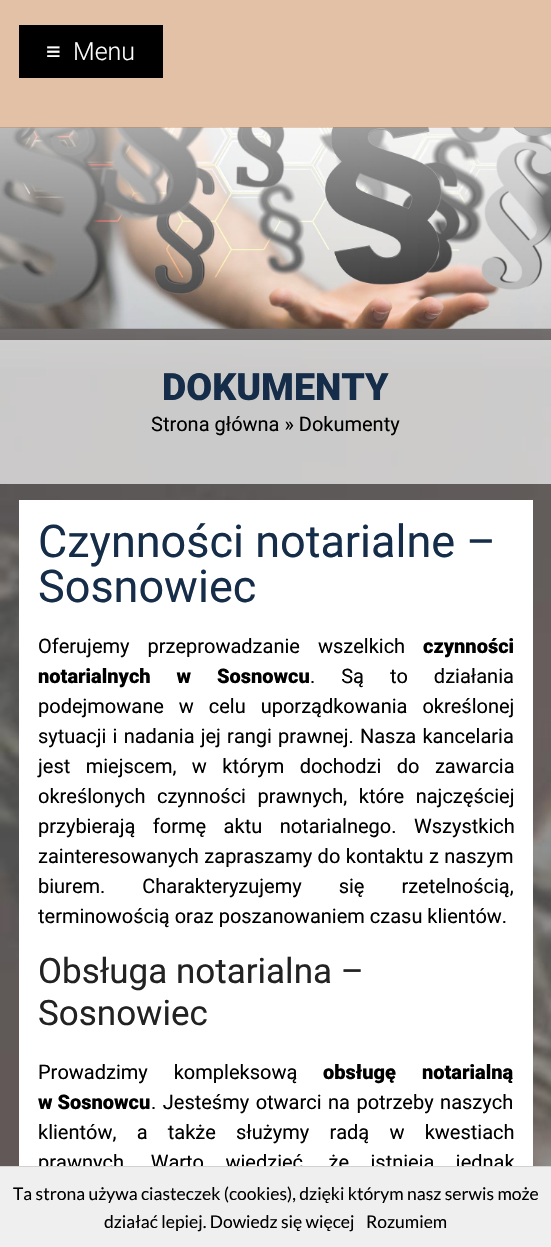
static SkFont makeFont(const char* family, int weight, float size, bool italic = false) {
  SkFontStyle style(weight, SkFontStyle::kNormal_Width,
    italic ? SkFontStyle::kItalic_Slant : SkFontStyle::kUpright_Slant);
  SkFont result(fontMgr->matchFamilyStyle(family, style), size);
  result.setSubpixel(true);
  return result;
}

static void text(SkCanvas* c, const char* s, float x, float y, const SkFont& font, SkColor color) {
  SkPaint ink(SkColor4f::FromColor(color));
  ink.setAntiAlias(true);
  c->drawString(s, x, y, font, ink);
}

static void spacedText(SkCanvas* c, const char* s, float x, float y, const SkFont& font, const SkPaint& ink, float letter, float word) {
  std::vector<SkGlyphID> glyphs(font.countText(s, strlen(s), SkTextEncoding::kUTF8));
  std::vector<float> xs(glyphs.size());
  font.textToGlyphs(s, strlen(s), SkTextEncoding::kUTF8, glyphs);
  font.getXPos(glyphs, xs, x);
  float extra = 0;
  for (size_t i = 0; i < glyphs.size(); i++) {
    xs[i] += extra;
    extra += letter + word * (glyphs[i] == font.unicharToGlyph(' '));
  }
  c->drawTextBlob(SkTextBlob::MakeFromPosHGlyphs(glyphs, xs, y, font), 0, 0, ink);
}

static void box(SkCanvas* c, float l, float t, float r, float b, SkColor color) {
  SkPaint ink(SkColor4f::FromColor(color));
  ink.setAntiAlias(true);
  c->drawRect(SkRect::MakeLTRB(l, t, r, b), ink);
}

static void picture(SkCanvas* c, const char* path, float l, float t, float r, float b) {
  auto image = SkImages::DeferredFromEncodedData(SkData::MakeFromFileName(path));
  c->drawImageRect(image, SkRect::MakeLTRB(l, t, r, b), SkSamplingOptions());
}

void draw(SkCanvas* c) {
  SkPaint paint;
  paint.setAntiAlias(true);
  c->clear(0xffffffff);
  picture(c, "img_01.png", 0, 328, 551, 1166);
  box(c, 0, 0, 551, 128, 0xffe2c1a7);
  box(c, 19, 25, 163, 78, 0xff000000);
  SkFont face1 = makeFont("Liberation Sans", 400, 25);
  text(c, "≡", 46, 60, face1, 0xffffffff);
  SkFont face2 = makeFont("Roboto", 300, 25);
  text(c, "Menu", 73, 60, face2, 0xffffffff);
  picture(c, "img_02.png", 0, 127, 551, 329);
  {
    const SkColor colors[] = {0x99ffffff, 0x00ffffff};
    const float stops[] = {0, 1};
    const SkPoint ends[] = {{276, 127}, {276, 378}};
    paint.setShader(SkGradientShader::MakeLinear(ends, colors, stops, 2, SkTileMode::kClamp));
    paint.setAlpha(255);
  }
  c->drawRect(SkRect::MakeLTRB(0, 128, 551, 369), paint);
  box(c, 0, 340, 551, 484, 0xb5f8f8f8);
  SkFont face3 = makeFont("Roboto", 900, 37.5f);
  text(c, "DOKUMENTY", 162, 400, face3, 0xff152d49);
  SkFont face4 = makeFont("Roboto", 400, 20);
  text(c, "Strona główna » Dokumenty", 151, 431, face4, 0xff000000);
  box(c, 19, 500, 533, 1166, 0xffffffff);
  SkFont face5 = makeFont("Roboto", 400, 45);
  text(c, "Czynności notarialne –", 38, 557, face5, 0xff152d49);
  text(c, "Sosnowiec", 38, 602, face5, 0xff152d49);
  paint.setShader(nullptr);
  paint.setColor(0xff000000);
  spacedText(c, "Oferujemy przeprowadzanie wszelkich", 38, 653, face4, paint, 0, 13);
  SkFont face6 = makeFont("Roboto", 900, 20);
  text(c, "czynności", 423, 653, face6, 0xff000000);
  spacedText(c, "notarialnych w Sosnowcu", 38, 683, face6, paint, 0, 21);
  spacedText(c, ". Są to działania", 310, 683, face4, paint, 0, 21);
  spacedText(c, "podejmowane w celu uporządkowania określonej", 38, 713, face4, paint, 0, 10);
  spacedText(c, "sytuacji i nadania jej rangi prawnej. Nasza kancelaria", 38, 743, face4, paint, 0, 1.25f);
  spacedText(c, "jest miejscem, w którym dochodzi do zawarcia", 38, 773, face4, paint, 0, 10.5f);
  spacedText(c, "określonych czynności prawnych, które najczęściej", 38, 803, face4, paint, 0, 6.5f);
  spacedText(c, "przybierają formę aktu notarialnego. Wszystkich", 38, 833, face4, paint, 0, 12.5f);
  spacedText(c, "zainteresowanych zapraszamy do kontaktu z naszym", 38, 863, face4, paint, 0, 0.5f);
  spacedText(c, "biurem. Charakteryzujemy się rzetelnością,", 38, 893, face4, paint, 0, 32);
  text(c, "terminowością oraz poszanowaniem czasu klientów.", 38, 923, face4, 0xff000000);
  SkFont face7 = makeFont("Roboto", 400, 35);
  text(c, "Obsługa notarialna –", 38, 983, face7, 0xff222222);
  text(c, "Sosnowiec", 38, 1025, face7, 0xff222222);
  spacedText(c, "Prowadzimy kompleksową", 38, 1079, face4, paint, 0, 21);
  spacedText(c, "obsługę notarialną", 323, 1079, face6, paint, 0, 21);
  text(c, "w Sosnowcu", 38, 1109, face6, 0xff000000);
  spacedText(c, ". Jesteśmy otwarci na potrzeby naszych", 151, 1109, face4, paint, 0, 1.5f);
  spacedText(c, "klientów, a także służymy radą w kwestiach", 38, 1139, face4, paint, 0, 15.25f);
  spacedText(c, "prawnych. Warto wiedzieć, że istnieją jednak", 38, 1169, face4, paint, 0, 16.5f);
  box(c, 0, 1167, 551, 1247, 0xffefefef);
  box(c, 0, 1166, 551, 1167, 0xffd3d0d0);
  SkFont face8 = makeFont("Lato", 400, 17.5f);
  text(c, "Ta strona używa ciasteczek (cookies), dzięki którym nasz serwis może", 13, 1200, face8, 0xff000000);
  text(c, "działać lepiej. Dowiedz się więcej", 104, 1228, face8, 0xff000000);
  text(c, "Rozumiem", 366, 1228, face8, 0xff000000);
}
